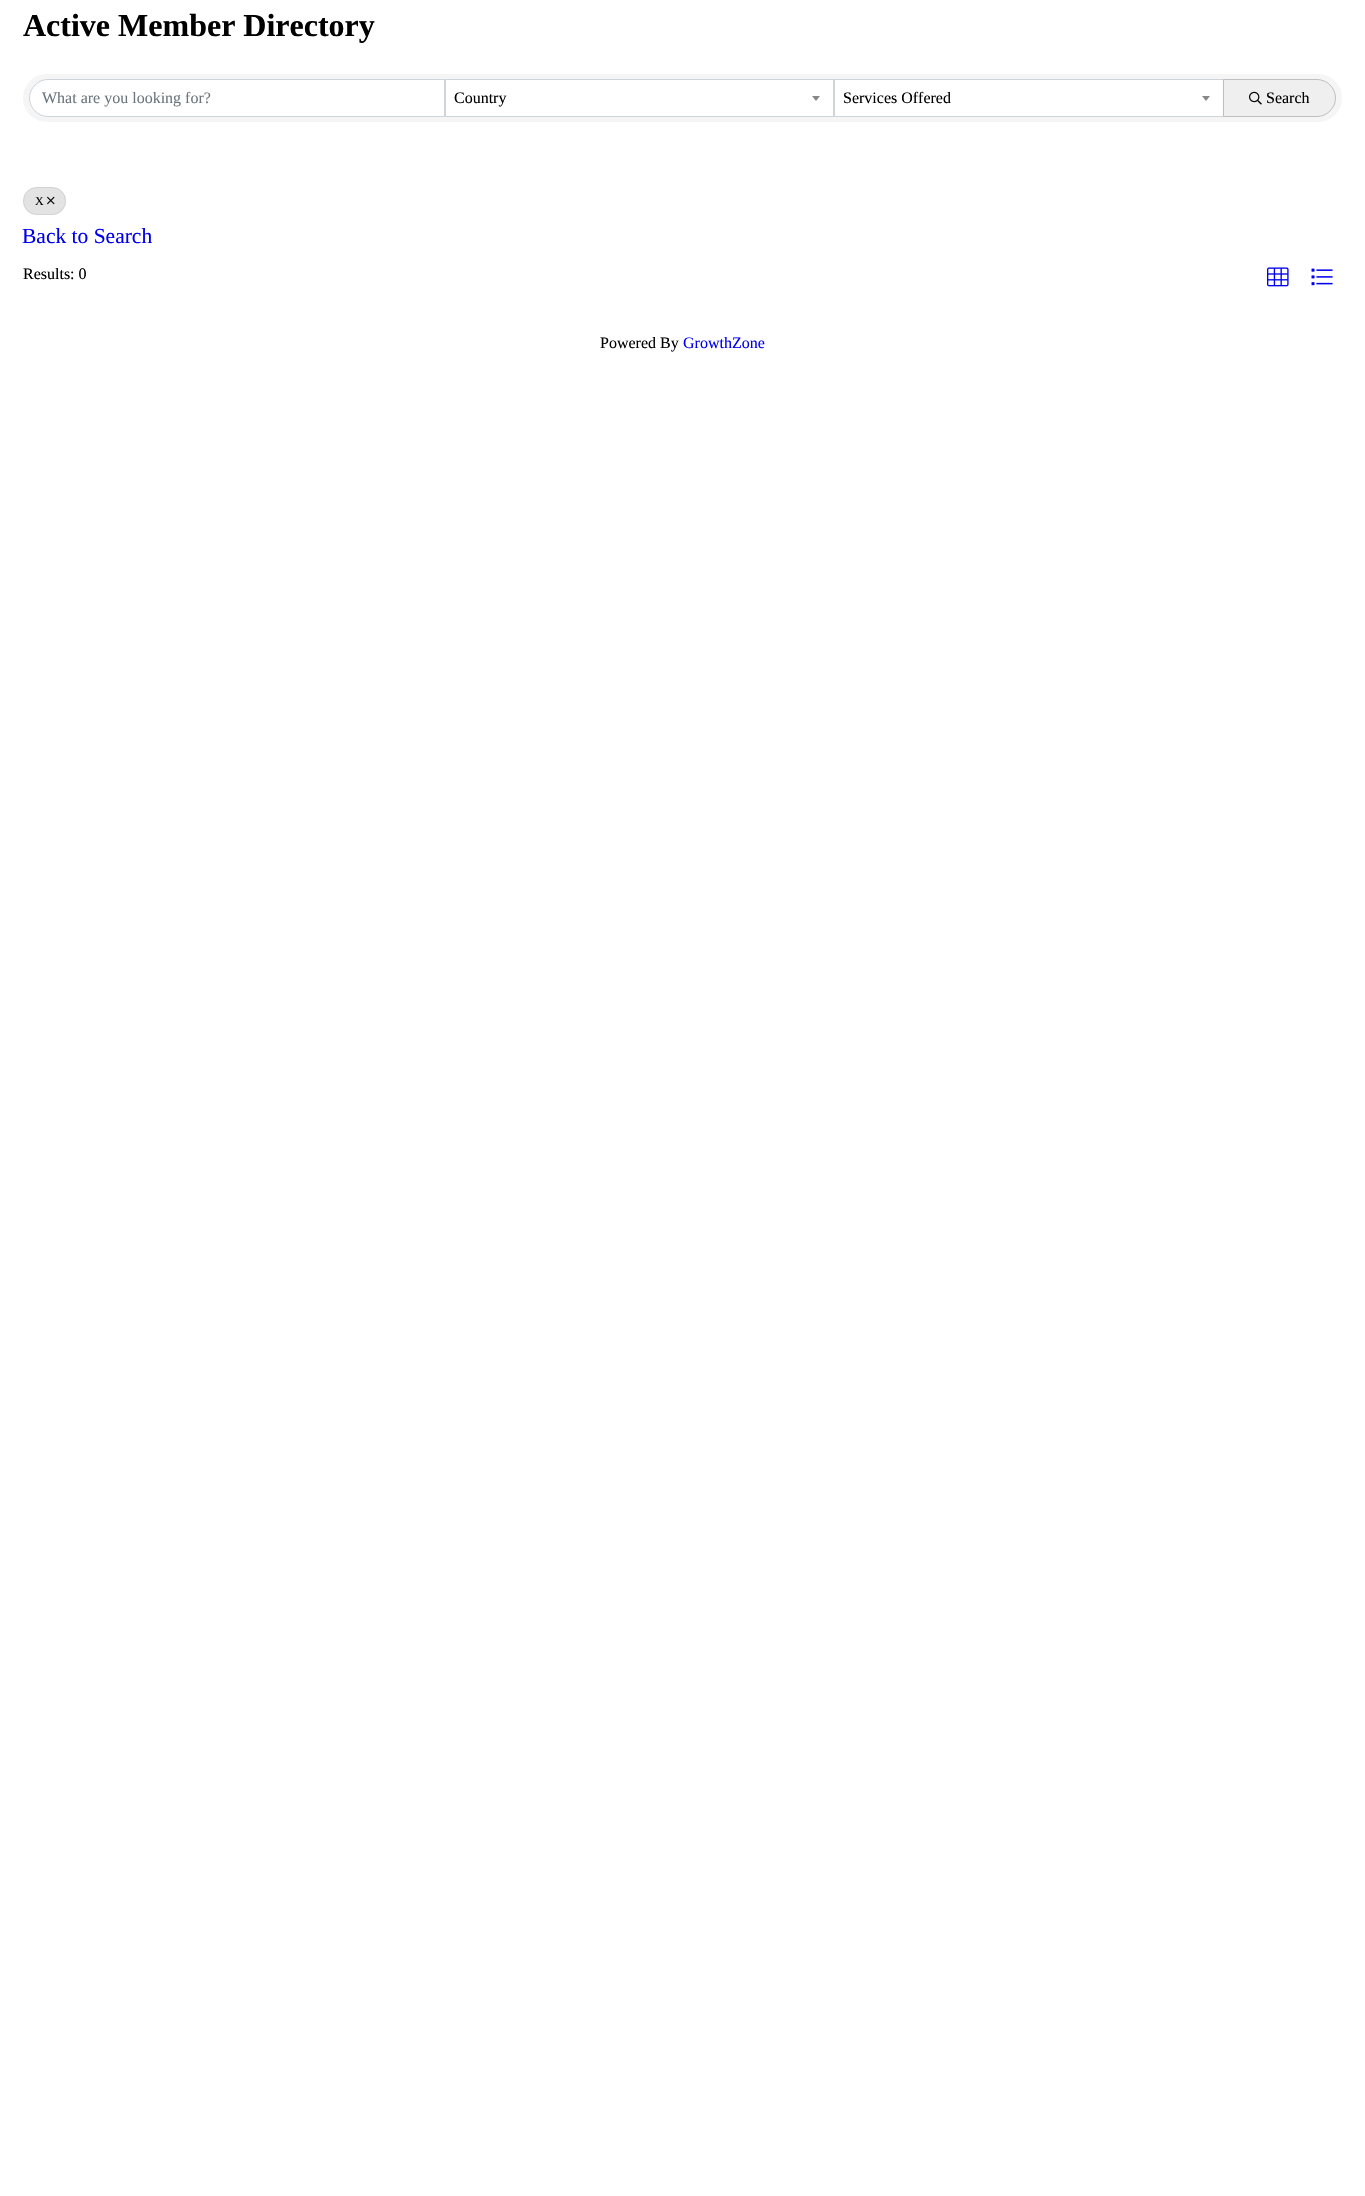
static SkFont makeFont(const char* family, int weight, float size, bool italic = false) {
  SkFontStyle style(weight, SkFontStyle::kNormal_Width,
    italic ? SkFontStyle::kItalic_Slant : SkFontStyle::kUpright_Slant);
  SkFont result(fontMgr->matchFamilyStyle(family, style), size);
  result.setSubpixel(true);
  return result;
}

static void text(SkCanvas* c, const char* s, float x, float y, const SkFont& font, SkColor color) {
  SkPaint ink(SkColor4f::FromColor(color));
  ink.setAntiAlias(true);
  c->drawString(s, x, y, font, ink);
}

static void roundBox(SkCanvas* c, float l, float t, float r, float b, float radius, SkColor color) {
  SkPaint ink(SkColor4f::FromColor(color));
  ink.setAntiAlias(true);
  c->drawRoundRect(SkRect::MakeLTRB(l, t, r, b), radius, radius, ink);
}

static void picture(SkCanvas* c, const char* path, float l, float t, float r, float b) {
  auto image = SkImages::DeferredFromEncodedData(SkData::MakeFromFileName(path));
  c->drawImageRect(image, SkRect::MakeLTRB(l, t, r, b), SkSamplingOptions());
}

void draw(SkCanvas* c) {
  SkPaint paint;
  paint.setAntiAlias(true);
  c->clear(0xffffffff);
  SkFont face1 = makeFont("Liberation Serif", 700, 32);
  text(c, "Active Member Directory", 23, 36, face1, 0xff000000);
  roundBox(c, 23, 74, 1342, 122, 24, 0xfff5f5f5);
  paint.setColor(0xffffffff);
  c->drawPath(SkPathBuilder().moveTo(48, 79.5f).lineTo(444.5f, 79.5f).lineTo(444.5f, 116.5f).lineTo(48, 116.5f).cubicTo(38, 116.5f, 29.5f, 108, 29.5f, 98).cubicTo(29.5f, 88, 38, 79.5f, 48, 79.5f).close().detach(), paint);
  paint.setStyle(SkPaint::kStroke_Style);
  paint.setStrokeWidth(1);
  paint.setColor(0xffced4da);
  c->drawPath(SkPathBuilder().moveTo(48, 79.5f).lineTo(444.5f, 79.5f).lineTo(444.5f, 116.5f).lineTo(48, 116.5f).cubicTo(38, 116.5f, 29.5f, 108, 29.5f, 98).cubicTo(29.5f, 88, 38, 79.5f, 48, 79.5f).close().detach(), paint);
  SkFont face2 = makeFont("Liberation Serif", 400, 16);
  text(c, "What are you looking for?", 42, 103, face2, 0xff6c757d);
  paint.setStyle(SkPaint::kFill_Style);
  paint.setColor(0xffffffff);
  c->drawRect(SkRect::MakeLTRB(445.5f, 79.5f, 833.5f, 116.5f), paint);
  paint.setStyle(SkPaint::kStroke_Style);
  paint.setColor(0xffced4da);
  c->drawRect(SkRect::MakeLTRB(445.5f, 79.5f, 833.5f, 116.5f), paint);
  text(c, "Country", 454, 103, face2, 0xff000000);
  paint.setStyle(SkPaint::kFill_Style);
  paint.setColor(0xff888888);
  c->drawPath(SkPathBuilder().moveTo(812, 96).lineTo(820, 96).lineTo(816, 101).close().detach(), paint);
  paint.setColor(0xffffffff);
  c->drawRect(SkRect::MakeLTRB(834.5f, 79.5f, 1223.5f, 116.5f), paint);
  paint.setStyle(SkPaint::kStroke_Style);
  paint.setColor(0xffced4da);
  c->drawRect(SkRect::MakeLTRB(834.5f, 79.5f, 1223.5f, 116.5f), paint);
  text(c, "Services Offered", 843, 103, face2, 0xff000000);
  paint.setStyle(SkPaint::kFill_Style);
  paint.setColor(0xff888888);
  c->drawPath(SkPathBuilder().moveTo(1202, 96).lineTo(1210, 96).lineTo(1206, 101).close().detach(), paint);
  paint.setColor(0xffefefef);
  c->drawPath(SkPathBuilder().moveTo(1223.5f, 79.5f).lineTo(1317, 79.5f).cubicTo(1327, 79.5f, 1335.5f, 88, 1335.5f, 98).cubicTo(1335.5f, 108, 1327, 116.5f, 1317, 116.5f).lineTo(1223.5f, 116.5f).close().detach(), paint);
  paint.setStyle(SkPaint::kStroke_Style);
  paint.setColor(0xffbfbfbf);
  c->drawPath(SkPathBuilder().moveTo(1223.5f, 79.5f).lineTo(1317, 79.5f).cubicTo(1327, 79.5f, 1335.5f, 88, 1335.5f, 98).cubicTo(1335.5f, 108, 1327, 116.5f, 1317, 116.5f).lineTo(1223.5f, 116.5f).close().detach(), paint);
  picture(c, "img_01.png", 1249, 91, 1262, 105);
  text(c, "Search", 1266, 103, face2, 0xff000000);
  roundBox(c, 23, 187, 66, 215, 14, 0xffe3e3e3);
  paint.setColor(0x12000000);
  c->drawRoundRect(SkRect::MakeLTRB(23.5f, 187.5f, 65.5f, 214.5f), 13.5f, 13.5f, paint);
  SkFont face3 = makeFont("Liberation Serif", 400, 12);
  text(c, "X", 35, 205, face3, 0xff000000);
  picture(c, "img_02.png", 47, 196, 55, 205);
  SkFont face4 = makeFont("Liberation Serif", 400, 21.5f);
  text(c, "Back to Search", 22, 243, face4, 0xff0000ee);
  text(c, "Results: 0", 23, 279, face2, 0xff000000);
  picture(c, "img_03.png", 1267, 267, 1289, 287);
  picture(c, "img_04.png", 1311, 268, 1333, 286);
  text(c, "Powered By", 600, 348, face2, 0xff000000);
  text(c, "GrowthZone", 683, 348, face2, 0xff0000ee);
}
